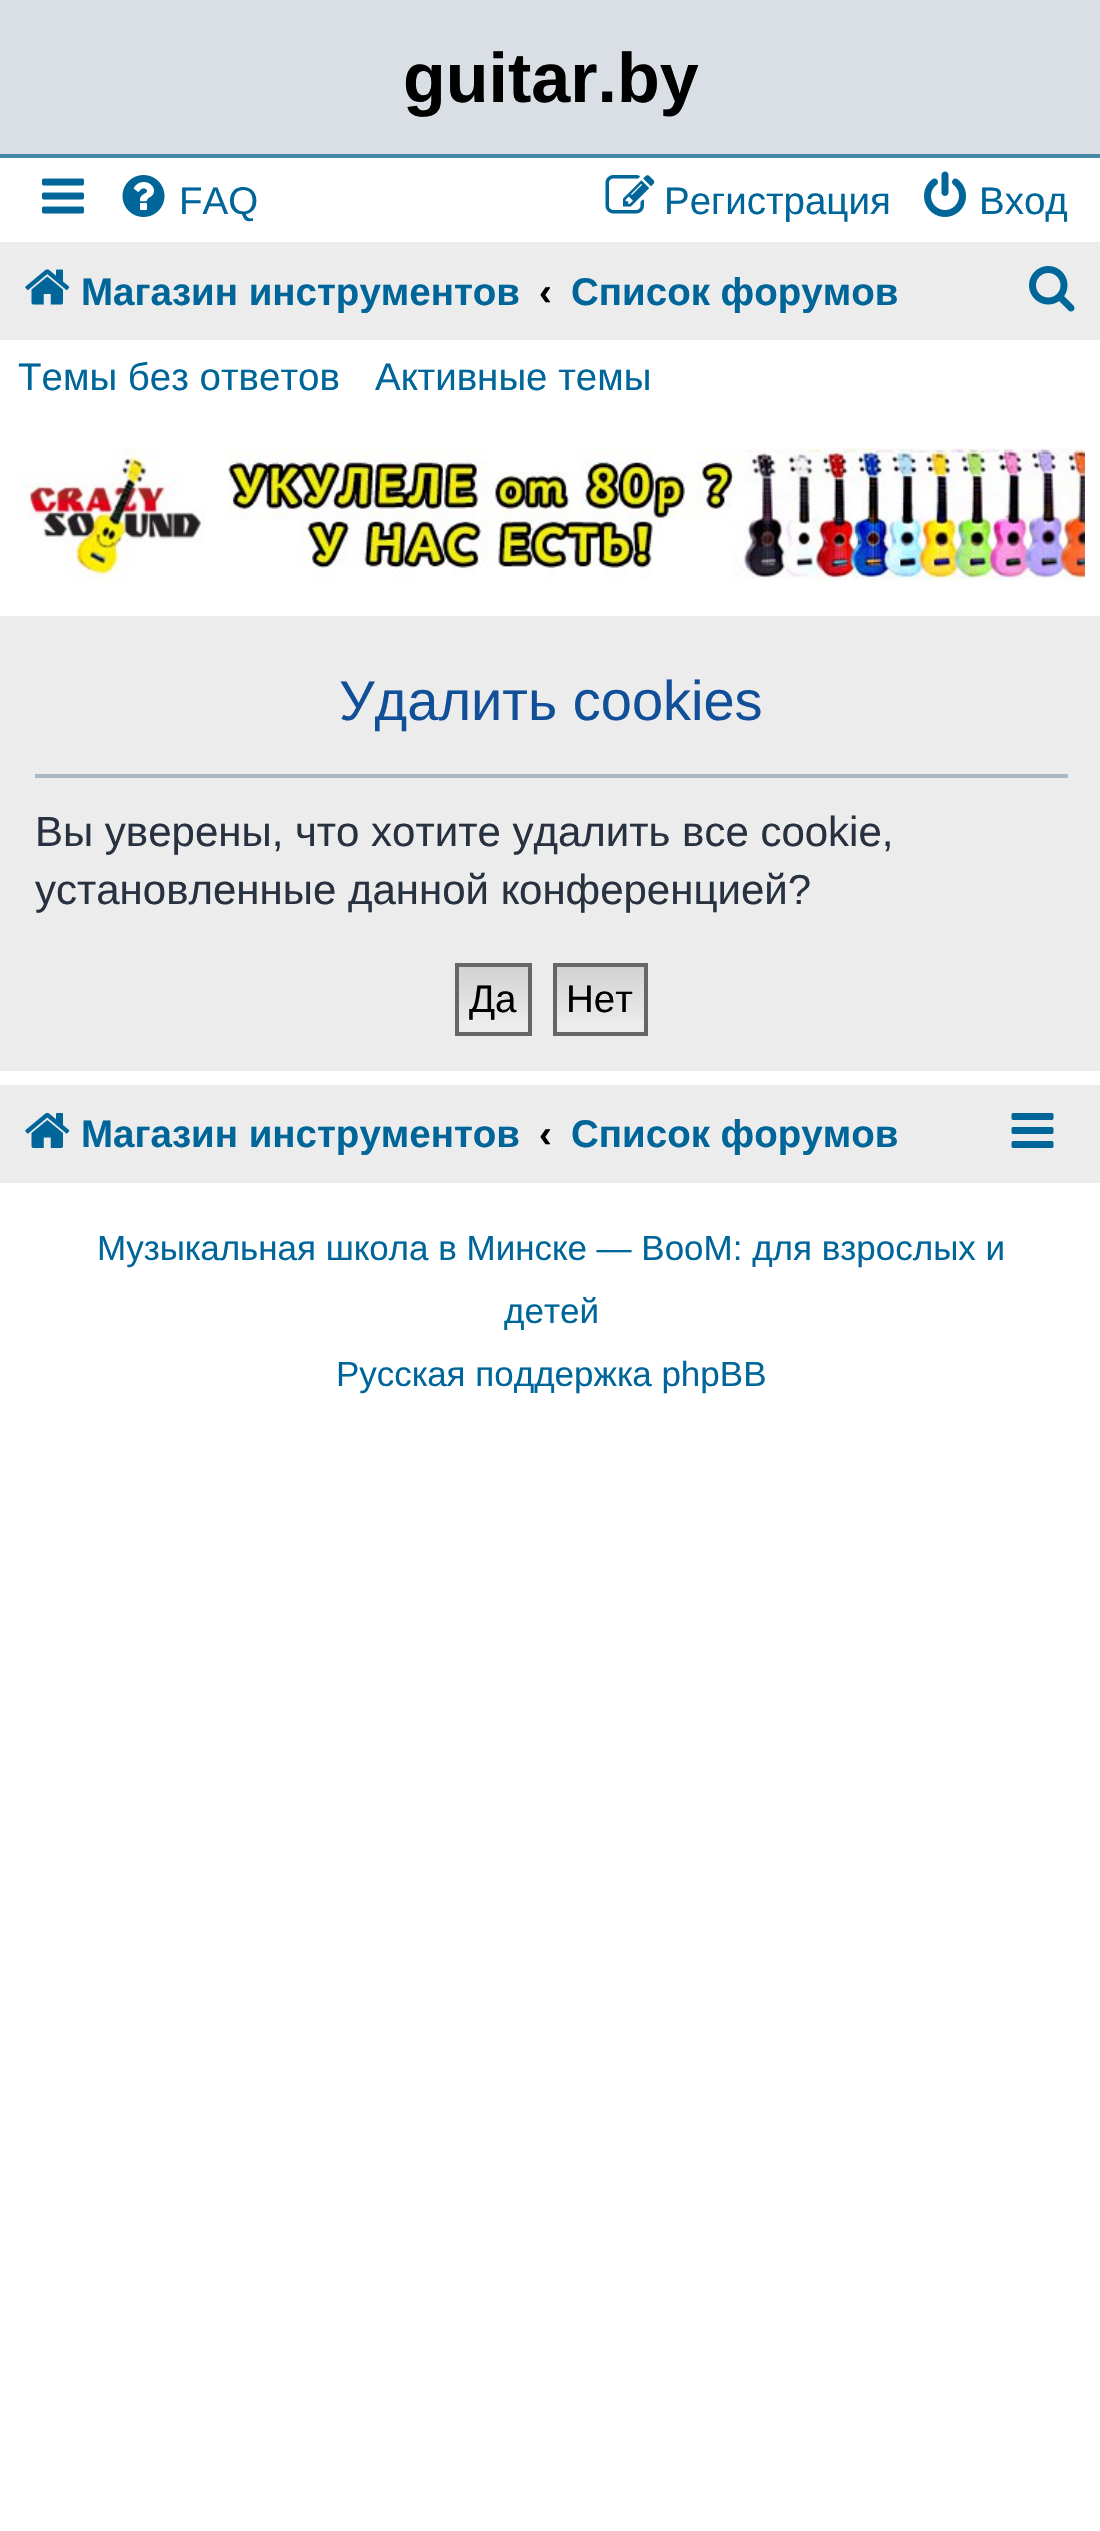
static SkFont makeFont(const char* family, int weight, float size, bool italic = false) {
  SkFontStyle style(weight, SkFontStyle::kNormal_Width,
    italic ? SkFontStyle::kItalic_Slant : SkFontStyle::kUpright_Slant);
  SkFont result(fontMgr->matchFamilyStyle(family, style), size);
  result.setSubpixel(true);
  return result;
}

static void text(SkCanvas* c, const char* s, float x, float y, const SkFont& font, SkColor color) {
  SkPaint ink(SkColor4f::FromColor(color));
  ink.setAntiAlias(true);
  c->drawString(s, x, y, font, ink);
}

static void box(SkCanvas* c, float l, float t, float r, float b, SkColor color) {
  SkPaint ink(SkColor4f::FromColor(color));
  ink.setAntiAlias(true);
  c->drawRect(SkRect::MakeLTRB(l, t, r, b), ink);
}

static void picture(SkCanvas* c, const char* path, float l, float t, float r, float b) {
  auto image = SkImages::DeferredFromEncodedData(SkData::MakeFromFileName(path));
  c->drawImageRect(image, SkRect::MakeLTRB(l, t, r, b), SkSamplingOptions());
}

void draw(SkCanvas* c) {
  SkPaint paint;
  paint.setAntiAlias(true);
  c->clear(0xffffffff);
  box(c, 0, 0, 1100, 154, 0xffd9dfe4);
  box(c, 0, 154, 1100, 158, 0xff4787a7);
  SkFont face1 = makeFont("Liberation Sans", 700, 70);
  text(c, "guitar.by", 403, 102, face1, 0xff000000);
  picture(c, "img_01.png", 42, 178, 84, 214);
  picture(c, "img_02.png", 122, 175, 165, 217);
  SkFont face2 = makeFont("Liberation Sans", 400, 38.5f);
  text(c, "FAQ", 179, 214, face2, 0xff006699);
  picture(c, "img_03.png", 605, 175, 655, 214);
  text(c, "Регистрация", 664, 214, face2, 0xff006699);
  picture(c, "img_04.png", 924, 171, 966, 217);
  text(c, "Вход", 979, 214, face2, 0xff006699);
  box(c, 0, 242, 1100, 340, 0xffececec);
  picture(c, "img_05.png", 25, 269, 70, 305);
  SkFont face3 = makeFont("Liberation Sans", 700, 38.5f);
  text(c, "Магазин инструментов", 81, 305, face3, 0xff006699);
  text(c, "‹", 539, 305, face3, 0xff000000);
  text(c, "Список форумов", 571, 305, face3, 0xff006699);
  picture(c, "img_06.png", 1029, 266, 1075, 312);
  text(c, "Темы без ответов", 18, 390, face2, 0xff006699);
  text(c, "Активные темы", 375, 390, face2, 0xff006699);
  picture(c, "img_07.png", 17, 448, 1085, 581);
  box(c, 0, 616, 1100, 1071, 0xffececec);
  box(c, 35, 774, 1068, 778, 0xffa9b8c2);
  SkFont face4 = makeFont("Liberation Sans", 400, 56);
  text(c, "Удалить cookies", 339, 720, face4, 0xff115098);
  SkFont face5 = makeFont("Liberation Sans", 400, 42);
  text(c, "Вы уверены, что хотите удалить все cookie,", 35, 846, face5, 0xff28313f);
  text(c, "установленные данной конференцией?", 35, 904, face5, 0xff28313f);
  {
    const SkColor colors[] = {0xffd2d2d2, 0xffefefef};
    const float stops[] = {0, 1};
    const SkPoint ends[] = {{494, 966}, {494, 1033}};
    paint.setShader(SkGradientShader::MakeLinear(ends, colors, stops, 2, SkTileMode::kClamp));
    paint.setAlpha(255);
  }
  c->drawRect(SkRect::MakeLTRB(459, 967, 528, 1020), paint);
  paint.setStyle(SkPaint::kStroke_Style);
  paint.setStrokeWidth(4);
  paint.setShader(nullptr);
  paint.setColor(0xff666666);
  c->drawRect(SkRect::MakeLTRB(457, 965, 530, 1034), paint);
  text(c, "Да", 469, 1012, face2, 0xff000000);
  paint.setStyle(SkPaint::kFill_Style);
  {
    const SkColor colors[] = {0xffd2d2d2, 0xffefefef};
    const float stops[] = {0, 1};
    const SkPoint ends[] = {{600, 966}, {600, 1033}};
    paint.setShader(SkGradientShader::MakeLinear(ends, colors, stops, 2, SkTileMode::kClamp));
    paint.setAlpha(255);
  }
  c->drawRect(SkRect::MakeLTRB(557, 967, 644, 1020), paint);
  paint.setStyle(SkPaint::kStroke_Style);
  paint.setShader(nullptr);
  paint.setColor(0xff666666);
  c->drawRect(SkRect::MakeLTRB(555, 965, 646, 1034), paint);
  text(c, "Нет", 566, 1012, face2, 0xff000000);
  box(c, 0, 1085, 1100, 1183, 0xffececec);
  picture(c, "img_08.png", 25, 1112, 70, 1148);
  text(c, "Магазин инструментов", 81, 1147, face3, 0xff006699);
  text(c, "‹", 539, 1147, face3, 0xff000000);
  text(c, "Список форумов", 571, 1147, face3, 0xff006699);
  picture(c, "img_09.png", 1011, 1113, 1054, 1148);
  SkFont face6 = makeFont("Liberation Sans", 400, 35);
  text(c, "Музыкальная школа в Минске — BooM: для взрослых и", 97, 1260, face6, 0xff006699);
  text(c, "детей", 504, 1323, face6, 0xff006699);
  text(c, "Русская поддержка phpBB", 336, 1386, face6, 0xff006699);
}
